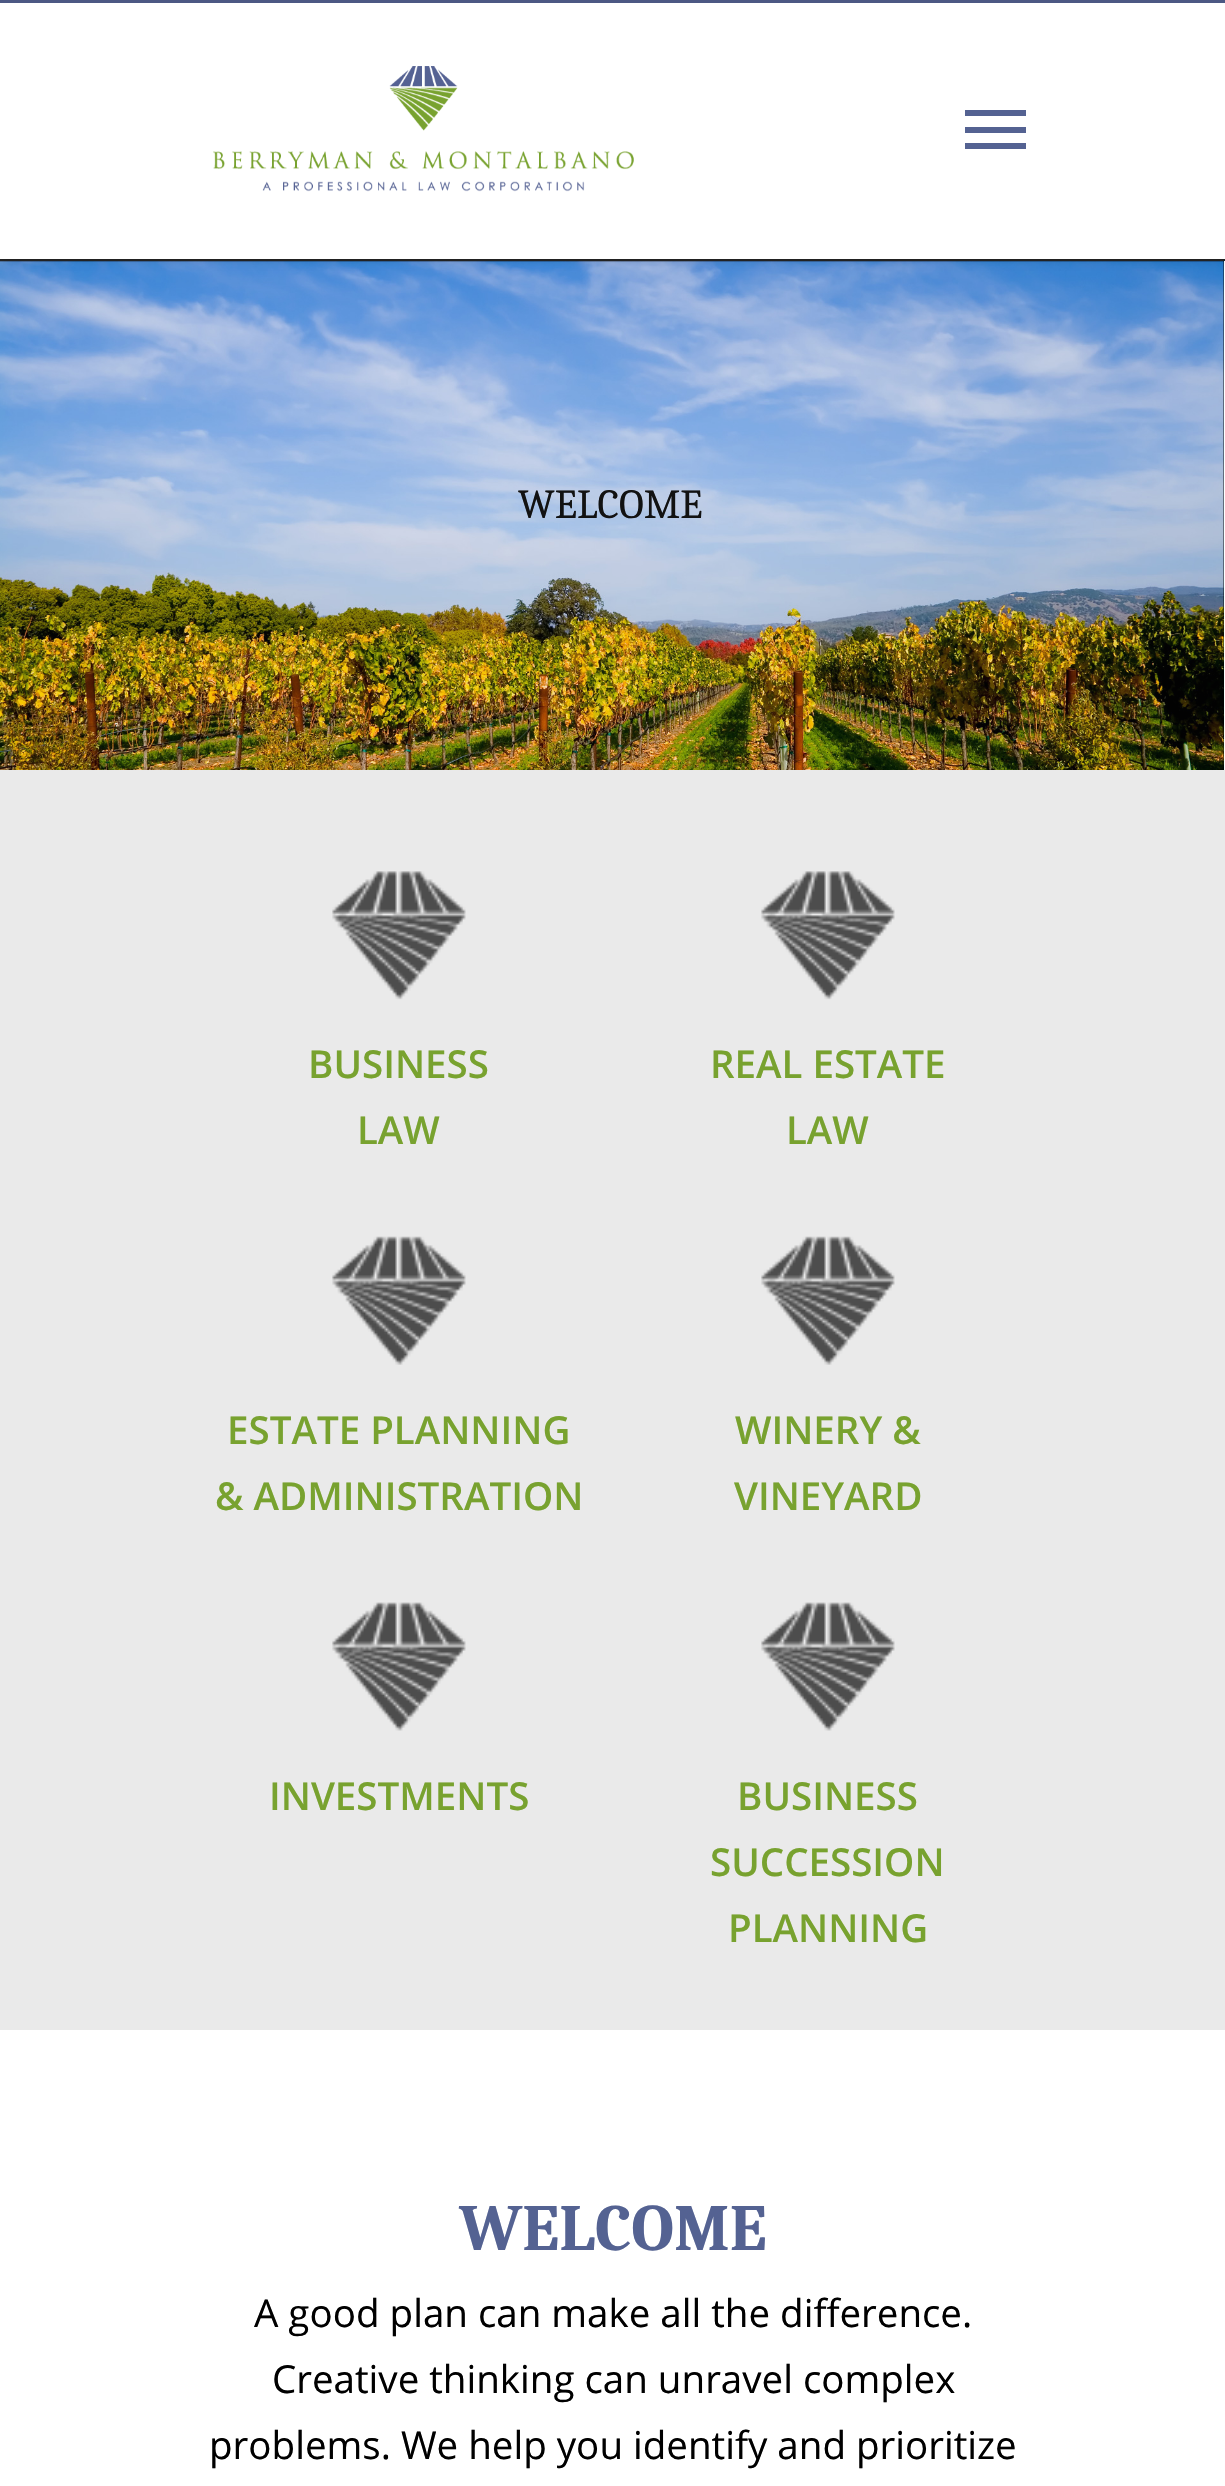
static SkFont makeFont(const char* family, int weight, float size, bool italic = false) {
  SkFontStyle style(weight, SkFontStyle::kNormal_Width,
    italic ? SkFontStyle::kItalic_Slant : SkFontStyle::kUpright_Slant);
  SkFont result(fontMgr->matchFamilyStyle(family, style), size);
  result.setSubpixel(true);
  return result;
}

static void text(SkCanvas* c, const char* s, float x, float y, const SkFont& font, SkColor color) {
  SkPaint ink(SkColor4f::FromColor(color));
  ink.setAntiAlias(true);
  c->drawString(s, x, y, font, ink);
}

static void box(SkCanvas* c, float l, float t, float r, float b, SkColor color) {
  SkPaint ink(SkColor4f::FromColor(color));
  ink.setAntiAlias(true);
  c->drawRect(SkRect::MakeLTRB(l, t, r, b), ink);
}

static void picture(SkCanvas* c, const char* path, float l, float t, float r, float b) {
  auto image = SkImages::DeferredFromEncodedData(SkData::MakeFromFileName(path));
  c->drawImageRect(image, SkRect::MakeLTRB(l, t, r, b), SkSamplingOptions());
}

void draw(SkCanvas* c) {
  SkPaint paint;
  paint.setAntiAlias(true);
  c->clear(0xff252525);
  box(c, 0, 261, 1225, 2486, 0xffffffff);
  box(c, 0, 261, 1224, 770, 0xff020202);
  picture(c, "img_02.png", 0, 261, 1224, 770);
  paint.setColor(0x38000000);
  paint.setMaskFilter(SkMaskFilter::MakeBlur(kNormal_SkBlurStyle, 4));
  c->drawRect(SkRect::MakeLTRB(0, 0, 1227, 259), paint);
  paint.setMaskFilter(nullptr);
  box(c, 0, 3, 1225, 259, 0xffffffff);
  picture(c, "img_01.png", 213, 66, 634, 192);
  box(c, 965, 110, 1026, 116, 0xff546292);
  box(c, 965, 143, 1026, 149, 0xff546292);
  box(c, 965, 127, 1026, 133, 0xff546292);
  box(c, 0, 0, 1225, 3, 0xff4c5883);
  SkFont face1 = makeFont("Caladea", 400, 41.25f);
  text(c, "WELCOME", 518, 518, face1, 0xff121212);
  box(c, 0, 770, 1225, 2030, 0xffeaeaea);
  picture(c, "img_03.png", 332, 871, 466, 1000);
  SkFont face2 = makeFont("Open Sans", 600, 38.5f);
  text(c, "BUSINESS", 308, 1078, face2, 0xff78a22f);
  text(c, "LAW", 357, 1144, face2, 0xff78a22f);
  picture(c, "img_04.png", 761, 871, 895, 1000);
  text(c, "REAL ESTATE", 710, 1078, face2, 0xff78a22f);
  text(c, "LAW", 786, 1144, face2, 0xff78a22f);
  picture(c, "img_05.png", 332, 1236, 466, 1365);
  text(c, "ESTATE PLANNING", 227, 1444, face2, 0xff78a22f);
  text(c, "& ADMINISTRATION", 215, 1510, face2, 0xff78a22f);
  picture(c, "img_06.png", 761, 1236, 895, 1365);
  text(c, "WINERY &", 735, 1444, face2, 0xff78a22f);
  text(c, "VINEYARD", 734, 1510, face2, 0xff78a22f);
  picture(c, "img_07.png", 332, 1602, 466, 1731);
  text(c, "INVESTMENTS", 269, 1810, face2, 0xff78a22f);
  picture(c, "img_08.png", 761, 1602, 895, 1731);
  text(c, "BUSINESS", 737, 1810, face2, 0xff78a22f);
  text(c, "SUCCESSION", 710, 1876, face2, 0xff78a22f);
  text(c, "PLANNING", 728, 1942, face2, 0xff78a22f);
  SkFont face3 = makeFont("Caladea", 700, 66);
  text(c, "WELCOME", 459, 2250, face3, 0xff546292);
  SkFont face4 = makeFont("Open Sans", 400, 38.5f);
  text(c, "A good plan can make all the difference.", 254, 2327, face4, 0xff000000);
  text(c, "Creative thinking can unravel complex", 272, 2393, face4, 0xff000000);
  text(c, "problems. We help you identify and prioritize", 209, 2459, face4, 0xff000000);
}
